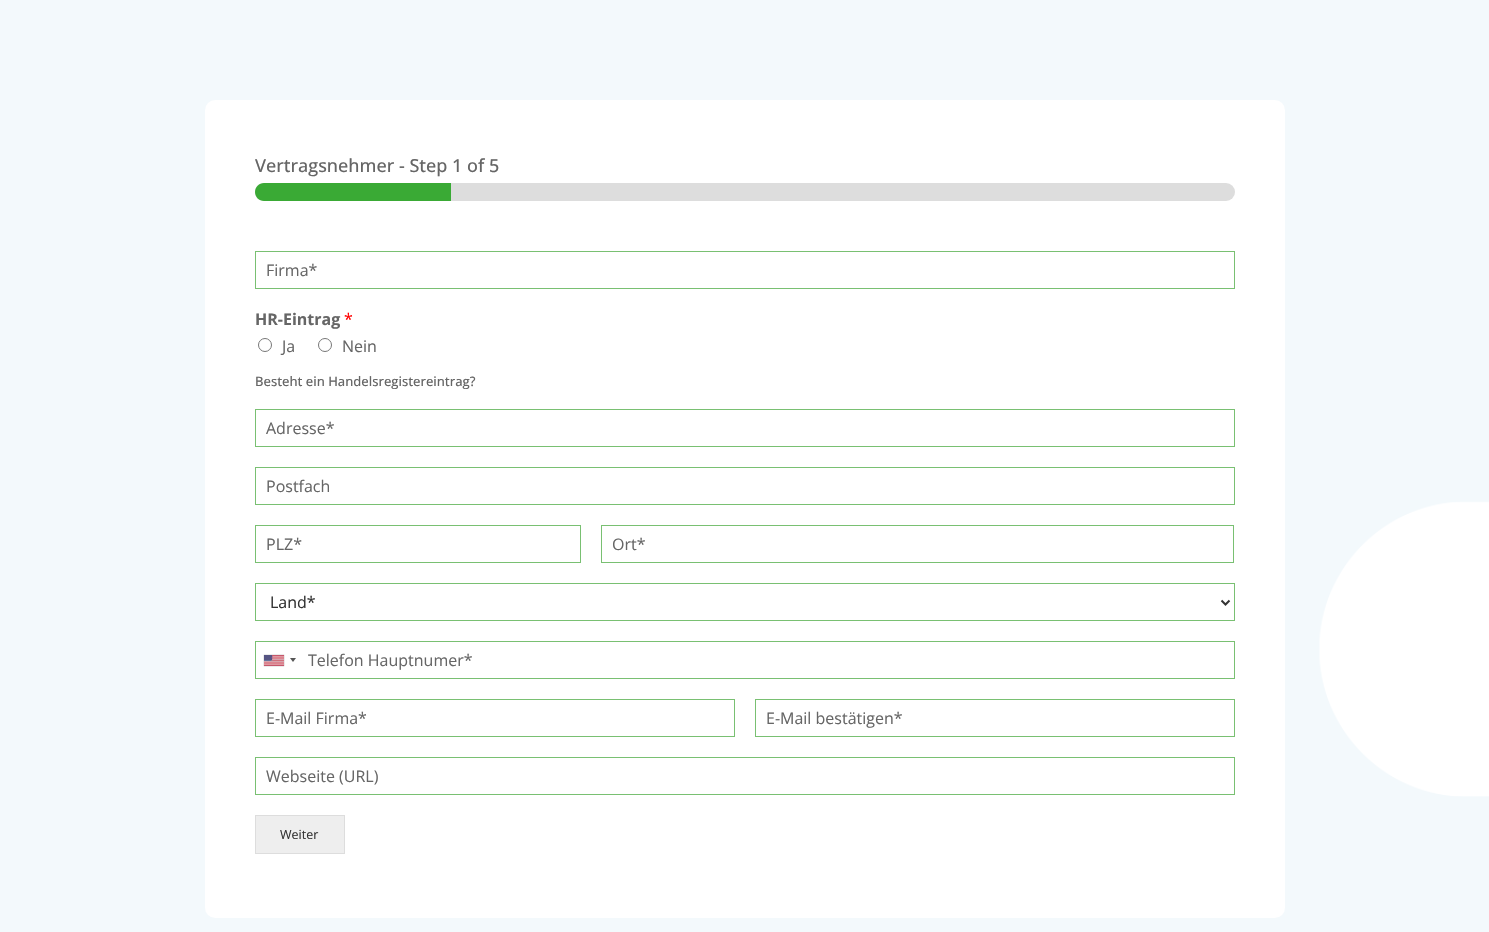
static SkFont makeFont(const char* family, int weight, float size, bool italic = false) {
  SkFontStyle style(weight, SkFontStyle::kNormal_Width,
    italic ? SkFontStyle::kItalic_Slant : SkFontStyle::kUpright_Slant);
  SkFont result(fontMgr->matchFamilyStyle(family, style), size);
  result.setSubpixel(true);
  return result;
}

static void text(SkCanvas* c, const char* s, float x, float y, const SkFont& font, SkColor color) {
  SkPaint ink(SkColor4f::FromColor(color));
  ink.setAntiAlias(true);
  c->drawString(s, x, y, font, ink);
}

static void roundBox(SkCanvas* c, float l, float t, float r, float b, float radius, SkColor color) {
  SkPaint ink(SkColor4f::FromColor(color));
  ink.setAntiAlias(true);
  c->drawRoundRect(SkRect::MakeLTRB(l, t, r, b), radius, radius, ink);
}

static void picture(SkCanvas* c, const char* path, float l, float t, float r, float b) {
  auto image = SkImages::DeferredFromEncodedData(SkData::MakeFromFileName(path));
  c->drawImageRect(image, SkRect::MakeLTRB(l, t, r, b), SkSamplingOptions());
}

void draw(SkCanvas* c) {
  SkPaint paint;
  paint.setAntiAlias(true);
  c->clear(0xfff3f9fc);
  roundBox(c, 205, 100, 1285, 918, 10, 0xffffffff);
  SkFont face1 = makeFont("Open Sans", 500, 18);
  text(c, "Vertragsnehmer - Step 1 of 5", 255, 172, face1, 0xff666666);
  roundBox(c, 255, 183, 1235, 201, 9, 0xffdddddd);
  paint.setColor(0xff3aaa35);
  c->drawPath(SkPathBuilder().moveTo(264, 183).lineTo(451, 183).lineTo(451, 201).lineTo(264, 201).cubicTo(259, 201, 255, 197, 255, 192).cubicTo(255, 187, 259, 183, 264, 183).close().detach(), paint);
  paint.setStyle(SkPaint::kStroke_Style);
  paint.setStrokeWidth(1);
  paint.setColor(0xff79c072);
  c->drawRect(SkRect::MakeLTRB(255.5f, 251.5f, 1234.5f, 288.5f), paint);
  SkFont face2 = makeFont("Open Sans", 400, 16);
  text(c, "Firma*", 266, 276, face2, 0xff666666);
  SkFont face3 = makeFont("Open Sans", 700, 16);
  text(c, "HR-Eintrag", 255, 325, face3, 0xff666666);
  text(c, "*", 344, 325, face2, 0xffff0000);
  paint.setColor(0xff767676);
  c->drawCircle(265, 345, 6.5f, paint);
  text(c, "Ja", 282, 352, face2, 0xff666666);
  c->drawCircle(325, 345, 6.5f, paint);
  text(c, "Nein", 342, 352, face2, 0xff666666);
  SkFont face4 = makeFont("Open Sans", 500, 13);
  text(c, "Besteht ein Handelsregistereintrag?", 255, 386, face4, 0xff666666);
  paint.setColor(0xff79c072);
  c->drawRect(SkRect::MakeLTRB(255.5f, 409.5f, 1234.5f, 446.5f), paint);
  text(c, "Adresse*", 266, 434, face2, 0xff666666);
  c->drawRect(SkRect::MakeLTRB(255.5f, 467.5f, 1234.5f, 504.5f), paint);
  text(c, "Postfach", 266, 492, face2, 0xff666666);
  c->drawRect(SkRect::MakeLTRB(255.5f, 525.5f, 580.5f, 562.5f), paint);
  text(c, "PLZ*", 266, 550, face2, 0xff666666);
  c->drawRect(SkRect::MakeLTRB(601.5f, 525.5f, 1233.5f, 562.5f), paint);
  text(c, "Ort*", 612, 550, face2, 0xff666666);
  c->drawRect(SkRect::MakeLTRB(255.5f, 583.5f, 1234.5f, 620.5f), paint);
  paint.setStrokeWidth(2);
  paint.setColor(0xff333333);
  c->drawPath(SkPathBuilder().moveTo(1221.5f, 600.5f).lineTo(1225.5f, 604.5f).lineTo(1229.5f, 600.5f).detach(), paint);
  text(c, "Land*", 270, 608, face2, 0xff333333);
  paint.setStrokeWidth(1);
  paint.setColor(0xff79c072);
  c->drawRect(SkRect::MakeLTRB(255.5f, 641.5f, 1234.5f, 678.5f), paint);
  paint.setStyle(SkPaint::kFill_Style);
  paint.setColor(0xff888888);
  paint.setMaskFilter(SkMaskFilter::MakeBlur(kNormal_SkBlurStyle, 0.5f));
  c->drawRect(SkRect::MakeLTRB(264, 655, 284, 666), paint);
  paint.setMaskFilter(nullptr);
  picture(c, "img_01.png", 264, 655, 284, 666);
  paint.setColor(0xff555555);
  c->drawPath(SkPathBuilder().moveTo(290, 658).lineTo(296, 658).lineTo(293, 662).close().detach(), paint);
  text(c, "Telefon Hauptnumer*", 308, 666, face2, 0xff666666);
  paint.setStyle(SkPaint::kStroke_Style);
  paint.setColor(0xff79c072);
  c->drawRect(SkRect::MakeLTRB(255.5f, 699.5f, 734.5f, 736.5f), paint);
  text(c, "E-Mail Firma*", 266, 724, face2, 0xff666666);
  c->drawRect(SkRect::MakeLTRB(755.5f, 699.5f, 1234.5f, 736.5f), paint);
  text(c, "E-Mail bestätigen*", 766, 724, face2, 0xff666666);
  c->drawRect(SkRect::MakeLTRB(255.5f, 757.5f, 1234.5f, 794.5f), paint);
  text(c, "Webseite (URL)", 266, 782, face2, 0xff666666);
  paint.setStyle(SkPaint::kFill_Style);
  paint.setColor(0xffeeeeee);
  c->drawRect(SkRect::MakeLTRB(255.5f, 815.5f, 344.5f, 853.5f), paint);
  paint.setStyle(SkPaint::kStroke_Style);
  paint.setColor(0xffdddddd);
  c->drawRect(SkRect::MakeLTRB(255.5f, 815.5f, 344.5f, 853.5f), paint);
  SkFont face5 = makeFont("Open Sans", 400, 12.5f);
  text(c, "Weiter", 280, 839, face5, 0xff333333);
  picture(c, "img_02.png", 1319, 501, 1489, 797);
}
